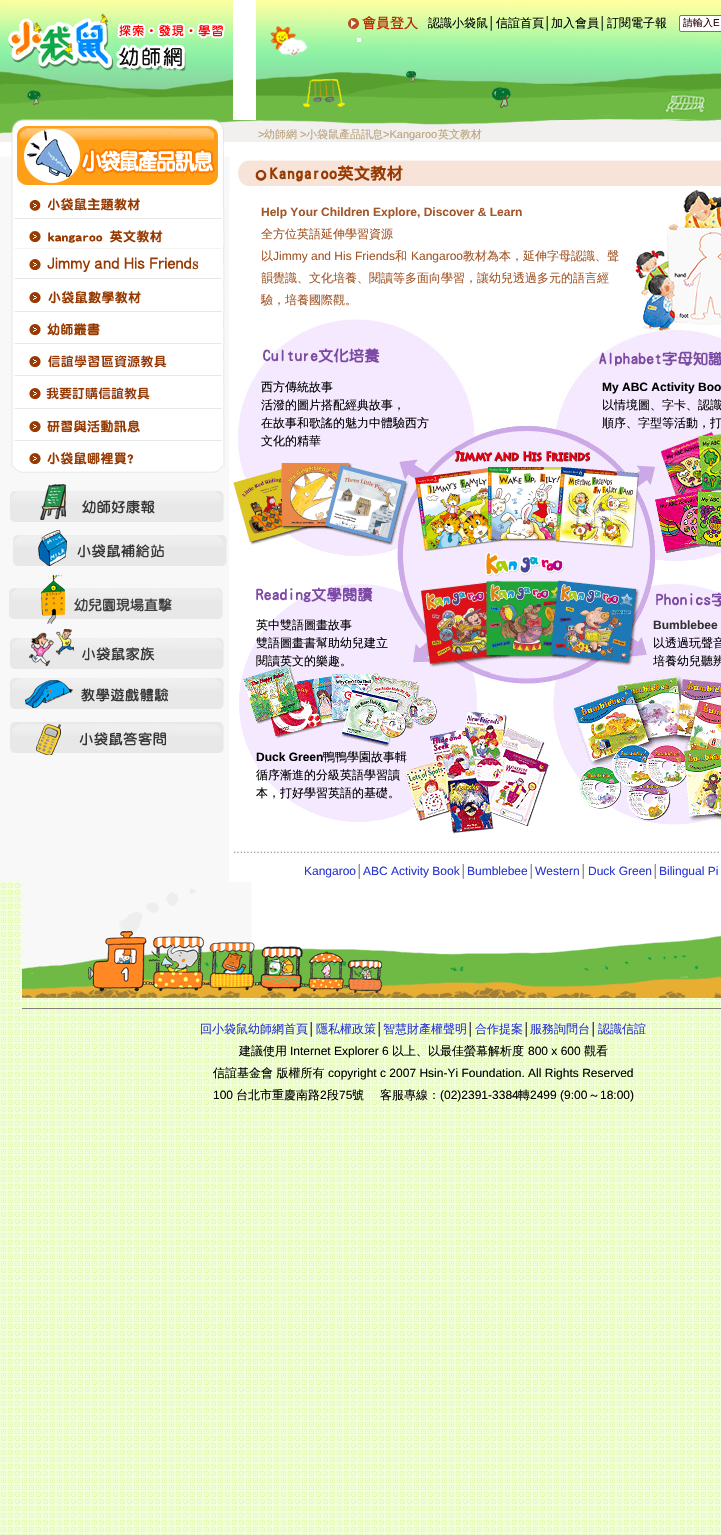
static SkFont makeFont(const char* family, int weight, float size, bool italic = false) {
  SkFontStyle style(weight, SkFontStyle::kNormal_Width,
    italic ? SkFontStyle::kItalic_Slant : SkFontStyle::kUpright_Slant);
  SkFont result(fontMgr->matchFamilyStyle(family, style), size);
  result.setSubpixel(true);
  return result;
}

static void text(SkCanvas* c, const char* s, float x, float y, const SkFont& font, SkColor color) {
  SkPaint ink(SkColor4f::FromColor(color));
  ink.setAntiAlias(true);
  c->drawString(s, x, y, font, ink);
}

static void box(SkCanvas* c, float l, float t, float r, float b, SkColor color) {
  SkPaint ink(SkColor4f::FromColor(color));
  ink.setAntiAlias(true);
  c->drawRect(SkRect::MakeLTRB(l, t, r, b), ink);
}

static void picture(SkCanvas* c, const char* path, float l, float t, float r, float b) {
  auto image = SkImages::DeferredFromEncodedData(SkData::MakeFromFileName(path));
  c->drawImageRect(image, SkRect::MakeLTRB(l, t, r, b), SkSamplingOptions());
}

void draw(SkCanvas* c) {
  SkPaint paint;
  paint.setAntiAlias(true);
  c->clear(0xffffffff);
  picture(c, "img_01.png", 0, 882, 721, 1535);
  box(c, 0, 188, 229, 882, 0xfff8f8f8);
  picture(c, "img_02.png", 0, 0, 233, 120);
  picture(c, "img_03.png", 0, 120, 233, 188);
  picture(c, "img_04.png", 11, 188, 225, 214);
  picture(c, "img_05.png", 11, 214, 225, 223);
  picture(c, "img_06.png", 11, 223, 225, 246);
  picture(c, "img_07.png", 11, 246, 225, 251);
  picture(c, "img_08.png", 11, 251, 225, 275);
  picture(c, "img_09.png", 11, 275, 225, 283);
  picture(c, "img_10.png", 11, 283, 225, 308);
  picture(c, "img_09.png", 11, 308, 225, 316);
  picture(c, "img_11.png", 11, 316, 225, 340);
  picture(c, "img_09.png", 11, 340, 225, 348);
  picture(c, "img_12.png", 11, 348, 225, 372);
  picture(c, "img_13.png", 11, 372, 225, 378);
  picture(c, "img_14.png", 11, 378, 225, 405);
  picture(c, "img_13.png", 11, 405, 225, 411);
  picture(c, "img_15.png", 11, 411, 225, 438);
  picture(c, "img_16.png", 11, 438, 225, 443);
  picture(c, "img_17.png", 11, 443, 225, 473);
  picture(c, "img_18.png", 10, 484, 224, 522);
  picture(c, "img_19.png", 13, 530, 227, 566);
  picture(c, "img_20.png", 9, 575, 223, 624);
  picture(c, "img_21.png", 10, 629, 224, 669);
  picture(c, "img_22.png", 10, 678, 224, 709);
  picture(c, "img_23.png", 10, 722, 224, 755);
  picture(c, "img_24.png", 256, 0, 721, 120);
  SkFont face1 = makeFont("WenQuanYi Zen Hei", 500, 12);
  text(c, "認識小袋鼠", 428, 27, face1, 0xff000000);
  SkFont face2 = makeFont("Liberation Sans", 400, 12);
  text(c, "│", 488, 27, face2, 0xff000000);
  text(c, "信誼首頁", 496, 27, face1, 0xff000000);
  text(c, "│", 544, 27, face2, 0xff000000);
  text(c, "加入會員", 551, 27, face1, 0xff000000);
  text(c, "│", 599, 27, face2, 0xff000000);
  text(c, "訂閱電子報", 607, 27, face1, 0xff000000);
  paint.setColor(0xffffffff);
  c->drawRoundRect(SkRect::MakeLTRB(679.5f, 15.5f, 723.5f, 31.5f), 1.5f, 1.5f, paint);
  paint.setStyle(SkPaint::kStroke_Style);
  paint.setStrokeWidth(1);
  paint.setColor(0xff767676);
  c->drawRoundRect(SkRect::MakeLTRB(679.5f, 15.5f, 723.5f, 31.5f), 1.5f, 1.5f, paint);
  SkFont face3 = makeFont("WenQuanYi Zen Hei", 500, 10);
  text(c, "請輸入", 683, 26, face3, 0xff2f0209);
  SkFont face4 = makeFont("Liberation Sans", 400, 10);
  text(c, "E", 713, 26, face4, 0xff2f0209);
  box(c, 357, 38, 361, 42, 0xffffffff);
  picture(c, "img_25.png", 233, 120, 721, 142);
  SkFont face5 = makeFont("Liberation Sans", 400, 11);
  text(c, ">", 258, 138, face5, 0xffbaa37b);
  SkFont face6 = makeFont("WenQuanYi Zen Hei", 500, 11);
  text(c, "幼師網", 264, 138, face6, 0xffbaa37b);
  text(c, ">", 300, 138, face5, 0xffbaa37b);
  text(c, "小袋鼠產品訊息", 306, 138, face6, 0xffbaa37b);
  text(c, ">Kangaroo", 383, 138, face5, 0xffbaa37b);
  text(c, "英文教材", 438, 138, face6, 0xffbaa37b);
  picture(c, "img_26.png", 238, 160, 721, 186);
  picture(c, "img_27.png", 635, 190, 721, 318);
  SkFont face7 = makeFont("Liberation Sans", 700, 12);
  text(c, "Help Your Children Explore, Discover & Learn", 261, 216, face7, 0xffa35628);
  text(c, "全方位英語延伸學習資源", 261, 238, face1, 0xffa35628);
  text(c, "以", 261, 260, face1, 0xffa35628);
  text(c, "Jimmy and His Friends", 273, 260, face2, 0xffa35628);
  text(c, "和", 395, 260, face1, 0xffa35628);
  text(c, "Kangaroo", 411, 260, face2, 0xffa35628);
  text(c, "教材為本，延伸字母認識、聲", 463, 260, face1, 0xffa35628);
  text(c, "韻覺識、文化培養、閱讀等多面向學習，讓幼兒透過多元的語言經", 261, 282, face1, 0xffa35628);
  text(c, "驗，培養國際觀。", 261, 304, face1, 0xffa35628);
  picture(c, "img_28.png", 235, 318, 721, 460);
  text(c, "西方傳統故事", 261, 391, face1, 0xff000000);
  text(c, "活潑的圖片搭配經典故事，", 261, 409, face1, 0xff000000);
  text(c, "在故事和歌謠的魅力中體驗西方", 261, 427, face1, 0xff000000);
  text(c, "文化的精華", 261, 445, face1, 0xff000000);
  text(c, "My ABC Activity Boo", 602, 391, face7, 0xff000000);
  text(c, "以情境圖、字卡、認識", 602, 409, face1, 0xff000000);
  text(c, "順序、字型等活動，打", 602, 427, face1, 0xff000000);
  picture(c, "img_29.png", 233, 460, 721, 580);
  picture(c, "img_30.png", 243, 580, 721, 673);
  text(c, "英中雙語圖畫故事", 256, 629, face1, 0xff000000);
  text(c, "雙語圖畫書幫助幼兒建立", 256, 647, face1, 0xff000000);
  text(c, "閱讀英文的樂趣。", 256, 665, face1, 0xff000000);
  text(c, "Bumblebee", 653, 629, face7, 0xff333333);
  text(c, "以透過玩聲音", 653, 647, face1, 0xff000000);
  text(c, "培養幼兒聽辨", 653, 665, face1, 0xff000000);
  picture(c, "img_31.png", 239, 673, 721, 834);
  text(c, "Duck Green", 256, 761, face7, 0xff000000);
  text(c, "鴨鴨學園故事輯", 323, 761, face1, 0xff000000);
  text(c, "循序漸進的分級英語學習讀", 256, 779, face1, 0xff000000);
  text(c, "本，打好學習英語的基礎。", 256, 797, face1, 0xff000000);
  text(c, "..................................................................................................................................................", 233, 853, face2, 0xff999999);
  text(c, "Kangaroo", 304, 875, face2, 0xff2b37d0);
  text(c, "│", 356, 875, face2, 0xff666666);
  text(c, "ABC Activity Book", 363, 875, face2, 0xff2b37d0);
  text(c, "│", 460, 875, face2, 0xff666666);
  text(c, "Bumblebee", 467, 875, face2, 0xff2b37d0);
  text(c, "│", 528, 875, face2, 0xff666666);
  text(c, "Western", 535, 875, face2, 0xff2b37d0);
  text(c, "│", 580, 875, face2, 0xff666666);
  text(c, "Duck Green", 588, 875, face2, 0xff2b37d0);
  text(c, "│", 652, 875, face2, 0xff666666);
  text(c, "Bilingual Pi", 659, 875, face2, 0xff2b37d0);
  picture(c, "img_32.png", 22, 882, 721, 998);
  box(c, 22, 1008, 721, 1009, 0xff808080);
  text(c, "回小袋鼠幼師網首頁", 200, 1033, face1, 0xff2b37d0);
  text(c, "│", 308, 1033, face2, 0xff000000);
  text(c, "隱私權政策", 316, 1033, face1, 0xff2b37d0);
  text(c, "│", 376, 1033, face2, 0xff000000);
  text(c, "智慧財產權聲明", 383, 1033, face1, 0xff2b37d0);
  text(c, "│", 467, 1033, face2, 0xff000000);
  text(c, "合作提案", 475, 1033, face1, 0xff2b37d0);
  text(c, "│", 523, 1033, face2, 0xff000000);
  text(c, "服務詢問台", 530, 1033, face1, 0xff2b37d0);
  text(c, "│", 590, 1033, face2, 0xff000000);
  text(c, "認識信誼", 598, 1033, face1, 0xff2b37d0);
  text(c, "建議使用", 239, 1055, face1, 0xff000000);
  text(c, "Internet Explorer 6", 290, 1055, face2, 0xff000000);
  text(c, "以上、以最佳螢幕解析度", 392, 1055, face1, 0xff000000);
  text(c, "800 x 600", 528, 1055, face2, 0xff000000);
  text(c, "觀看", 584, 1055, face1, 0xff000000);
  text(c, "信誼基金會 版權所有", 213, 1077, face1, 0xff000000);
  text(c, "copyright c 2007 Hsin-Yi Foundation. All Rights Reserved", 328, 1077, face2, 0xff000000);
  text(c, "100", 213, 1099, face2, 0xff000000);
  text(c, "台北市重慶南路", 236, 1099, face1, 0xff000000);
  text(c, "2", 320, 1099, face2, 0xff000000);
  text(c, "段", 327, 1099, face1, 0xff000000);
  text(c, "75", 339, 1099, face2, 0xff000000);
  text(c, "號", 352, 1099, face1, 0xff000000);
  text(c, "客服專線：", 380, 1099, face1, 0xff000000);
  text(c, "(02)2391-3384", 440, 1099, face2, 0xff000000);
  text(c, "轉", 518, 1099, face1, 0xff000000);
  text(c, "2499 (9:00", 530, 1099, face2, 0xff000000);
  text(c, "～", 588, 1099, face1, 0xff000000);
  text(c, "18:00)", 600, 1099, face2, 0xff000000);
}
